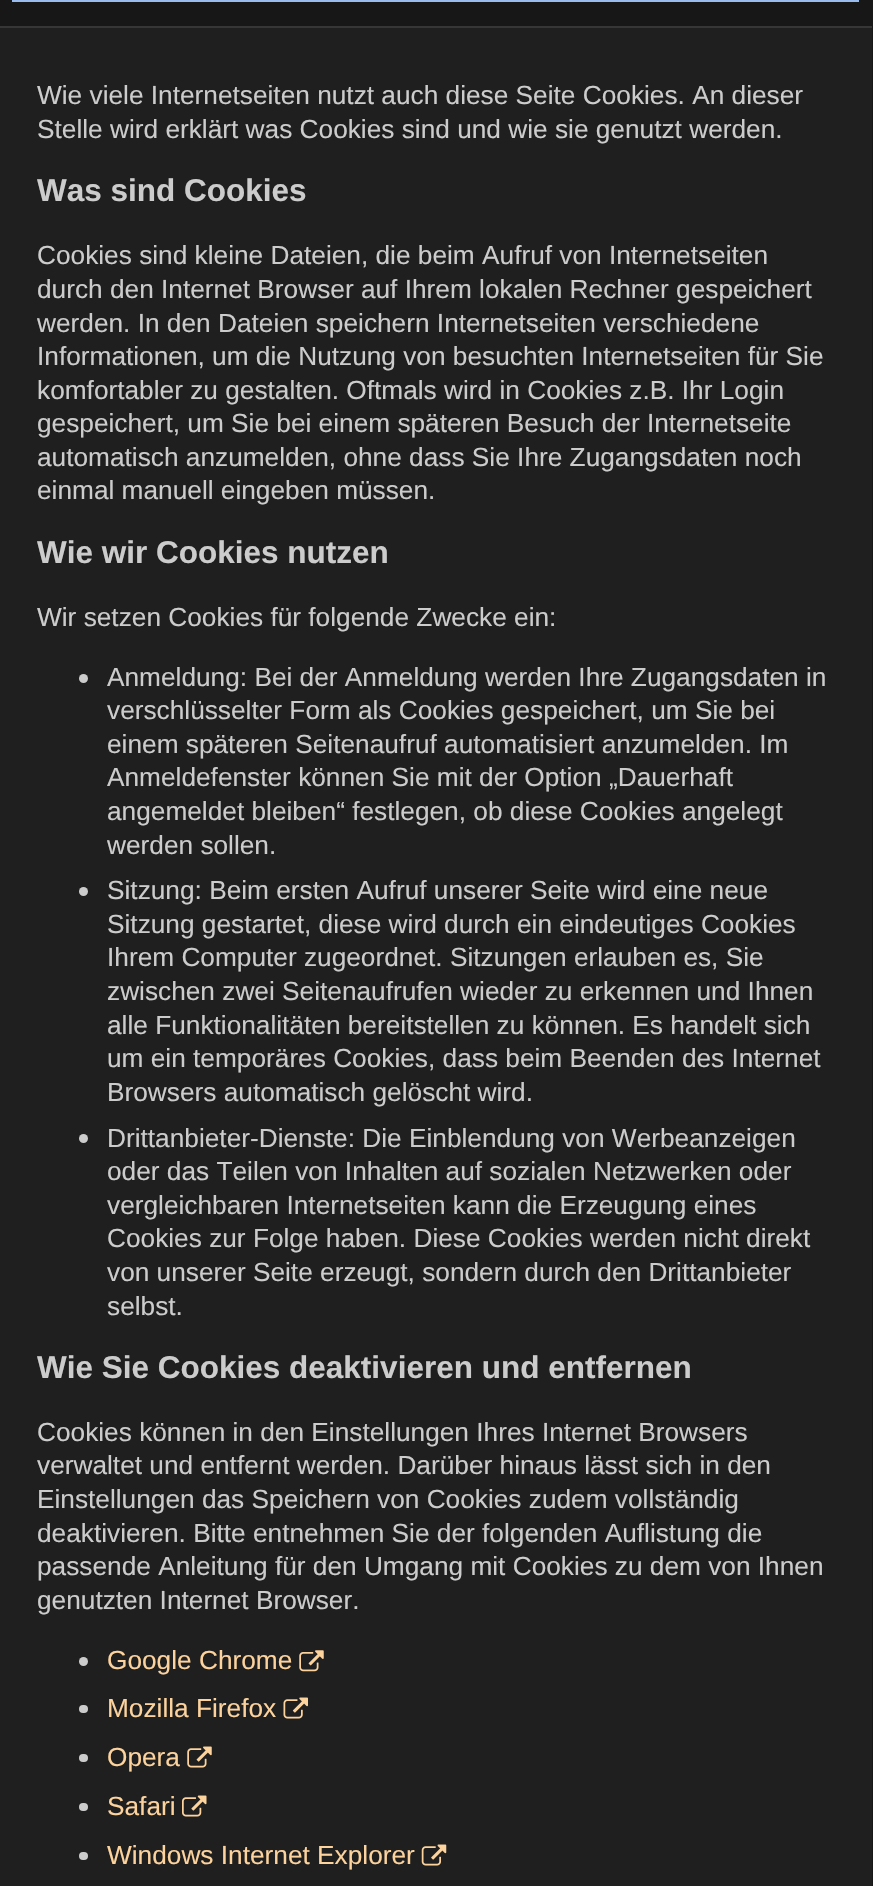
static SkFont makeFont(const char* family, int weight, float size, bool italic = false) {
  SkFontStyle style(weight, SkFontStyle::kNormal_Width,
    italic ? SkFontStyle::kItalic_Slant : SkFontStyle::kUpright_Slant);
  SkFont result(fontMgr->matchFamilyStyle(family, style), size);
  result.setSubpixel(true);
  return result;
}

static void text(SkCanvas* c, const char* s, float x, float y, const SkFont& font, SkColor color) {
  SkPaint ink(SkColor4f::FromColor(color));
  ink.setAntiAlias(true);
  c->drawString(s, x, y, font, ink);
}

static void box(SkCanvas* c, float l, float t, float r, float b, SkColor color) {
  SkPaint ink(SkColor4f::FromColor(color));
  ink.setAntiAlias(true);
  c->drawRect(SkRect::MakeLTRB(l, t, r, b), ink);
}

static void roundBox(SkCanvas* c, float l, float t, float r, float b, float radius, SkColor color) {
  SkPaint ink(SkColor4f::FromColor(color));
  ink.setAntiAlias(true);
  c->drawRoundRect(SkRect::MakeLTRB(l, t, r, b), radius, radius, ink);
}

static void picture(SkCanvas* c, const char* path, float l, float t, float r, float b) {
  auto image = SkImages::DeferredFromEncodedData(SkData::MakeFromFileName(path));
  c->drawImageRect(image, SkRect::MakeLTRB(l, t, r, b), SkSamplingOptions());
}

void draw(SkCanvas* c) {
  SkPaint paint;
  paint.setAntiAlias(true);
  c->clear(0xff171717);
  paint.setStyle(SkPaint::kStroke_Style);
  paint.setStrokeWidth(2);
  paint.setColor(0xff99bbee);
  c->drawRect(SkRect::MakeLTRB(13, -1, 858, 1), paint);
  box(c, 0, 28, 872, 1886, 0xff1f1f1f);
  box(c, 0, 26, 872, 28, 0xff363636);
  SkFont face1 = makeFont("Liberation Sans", 400, 26.25f);
  text(c, "Wie viele Internetseiten nutzt auch diese Seite Cookies. An dieser", 37, 104, face1, 0xffcccccc);
  text(c, "Stelle wird erklärt was Cookies sind und wie sie genutzt werden.", 37, 138, face1, 0xffcccccc);
  SkFont face2 = makeFont("Liberation Sans", 700, 31.5f);
  text(c, "Was sind Cookies", 37, 201, face2, 0xffcccccc);
  text(c, "Cookies sind kleine Dateien, die beim Aufruf von Internetseiten", 37, 264, face1, 0xffcccccc);
  text(c, "durch den Internet Browser auf Ihrem lokalen Rechner gespeichert", 37, 298, face1, 0xffcccccc);
  text(c, "werden. In den Dateien speichern Internetseiten verschiedene", 37, 332, face1, 0xffcccccc);
  text(c, "Informationen, um die Nutzung von besuchten Internetseiten für Sie", 37, 365, face1, 0xffcccccc);
  text(c, "komfortabler zu gestalten. Oftmals wird in Cookies z.B. Ihr Login", 37, 399, face1, 0xffcccccc);
  text(c, "gespeichert, um Sie bei einem späteren Besuch der Internetseite", 37, 432, face1, 0xffcccccc);
  text(c, "automatisch anzumelden, ohne dass Sie Ihre Zugangsdaten noch", 37, 466, face1, 0xffcccccc);
  text(c, "einmal manuell eingeben müssen.", 37, 499, face1, 0xffcccccc);
  text(c, "Wie wir Cookies nutzen", 37, 563, face2, 0xffcccccc);
  text(c, "Wir setzen Cookies für folgende Zwecke ein:", 37, 626, face1, 0xffcccccc);
  paint.setStyle(SkPaint::kFill_Style);
  paint.setColor(0xffcccccc);
  c->drawCircle(83.5f, 678.5f, 4.5f, paint);
  text(c, "Anmeldung: Bei der Anmeldung werden Ihre Zugangsdaten in", 107, 686, face1, 0xffcccccc);
  text(c, "verschlüsselter Form als Cookies gespeichert, um Sie bei", 107, 719, face1, 0xffcccccc);
  text(c, "einem späteren Seitenaufruf automatisiert anzumelden. Im", 107, 753, face1, 0xffcccccc);
  text(c, "Anmeldefenster können Sie mit der Option „Dauerhaft", 107, 786, face1, 0xffcccccc);
  text(c, "angemeldet bleiben“ festlegen, ob diese Cookies angelegt", 107, 820, face1, 0xffcccccc);
  text(c, "werden sollen.", 107, 854, face1, 0xffcccccc);
  c->drawCircle(83.5f, 891.5f, 4.5f, paint);
  text(c, "Sitzung: Beim ersten Aufruf unserer Seite wird eine neue", 107, 899, face1, 0xffcccccc);
  text(c, "Sitzung gestartet, diese wird durch ein eindeutiges Cookies", 107, 933, face1, 0xffcccccc);
  text(c, "Ihrem Computer zugeordnet. Sitzungen erlauben es, Sie", 107, 966, face1, 0xffcccccc);
  text(c, "zwischen zwei Seitenaufrufen wieder zu erkennen und Ihnen", 107, 1000, face1, 0xffcccccc);
  text(c, "alle Funktionalitäten bereitstellen zu können. Es handelt sich", 107, 1034, face1, 0xffcccccc);
  text(c, "um ein temporäres Cookies, dass beim Beenden des Internet", 107, 1067, face1, 0xffcccccc);
  text(c, "Browsers automatisch gelöscht wird.", 107, 1101, face1, 0xffcccccc);
  c->drawCircle(83.5f, 1138.5f, 4.5f, paint);
  text(c, "Drittanbieter-Dienste: Die Einblendung von Werbeanzeigen", 107, 1147, face1, 0xffcccccc);
  text(c, "oder das Teilen von Inhalten auf sozialen Netzwerken oder", 107, 1180, face1, 0xffcccccc);
  text(c, "vergleichbaren Internetseiten kann die Erzeugung eines", 107, 1214, face1, 0xffcccccc);
  text(c, "Cookies zur Folge haben. Diese Cookies werden nicht direkt", 107, 1247, face1, 0xffcccccc);
  text(c, "von unserer Seite erzeugt, sondern durch den Drittanbieter", 107, 1281, face1, 0xffcccccc);
  text(c, "selbst.", 107, 1315, face1, 0xffcccccc);
  text(c, "Wie Sie Cookies deaktivieren und entfernen", 37, 1378, face2, 0xffcccccc);
  text(c, "Cookies können in den Einstellungen Ihres Internet Browsers", 37, 1441, face1, 0xffcccccc);
  text(c, "verwaltet und entfernt werden. Darüber hinaus lässt sich in den", 37, 1474, face1, 0xffcccccc);
  text(c, "Einstellungen das Speichern von Cookies zudem vollständig", 37, 1508, face1, 0xffcccccc);
  text(c, "deaktivieren. Bitte entnehmen Sie der folgenden Auflistung die", 37, 1542, face1, 0xffcccccc);
  text(c, "passende Anleitung für den Umgang mit Cookies zu dem von Ihnen", 37, 1575, face1, 0xffcccccc);
  text(c, "genutzten Internet Browser.", 37, 1609, face1, 0xffcccccc);
  c->drawCircle(83.5f, 1661.5f, 4.5f, paint);
  text(c, "Google Chrome", 107, 1669, face1, 0xfffcd29d);
  picture(c, "img_01.png", 299, 1650, 324, 1672);
  roundBox(c, 79, 1705, 88, 1713, 4, 0xffcccccc);
  text(c, "Mozilla Firefox", 107, 1717, face1, 0xfffcd29d);
  picture(c, "img_02.png", 283, 1697, 308, 1719);
  roundBox(c, 79, 1754, 88, 1762, 4, 0xffcccccc);
  text(c, "Opera", 107, 1766, face1, 0xfffcd29d);
  picture(c, "img_03.png", 187, 1746, 212, 1768);
  roundBox(c, 79, 1803, 88, 1811, 4, 0xffcccccc);
  text(c, "Safari", 107, 1815, face1, 0xfffcd29d);
  picture(c, "img_04.png", 182, 1795, 207, 1817);
  roundBox(c, 79, 1852, 88, 1860, 4, 0xffcccccc);
  text(c, "Windows Internet Explorer", 107, 1864, face1, 0xfffcd29d);
  picture(c, "img_05.png", 421, 1844, 447, 1866);
}
